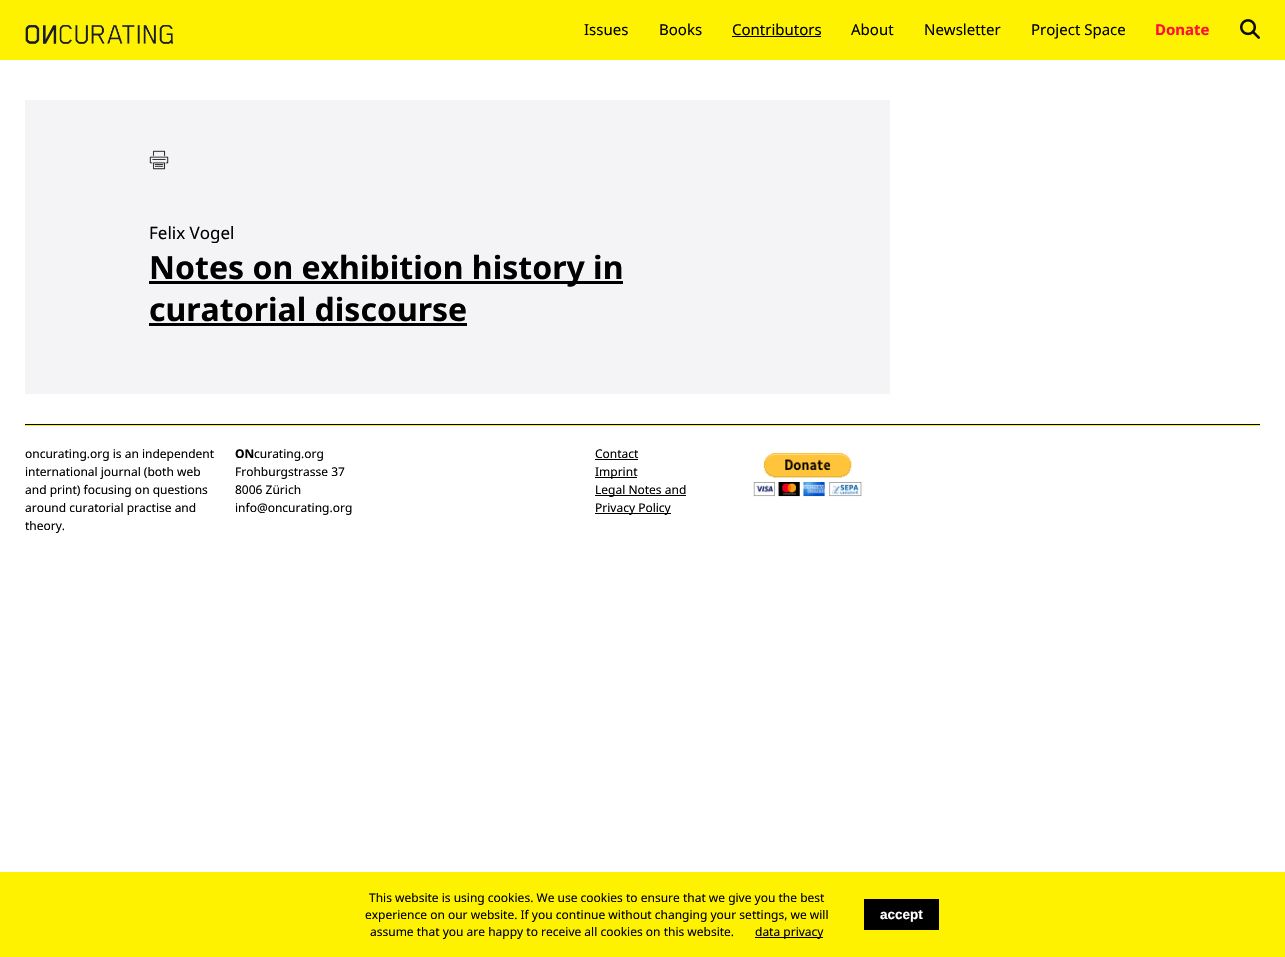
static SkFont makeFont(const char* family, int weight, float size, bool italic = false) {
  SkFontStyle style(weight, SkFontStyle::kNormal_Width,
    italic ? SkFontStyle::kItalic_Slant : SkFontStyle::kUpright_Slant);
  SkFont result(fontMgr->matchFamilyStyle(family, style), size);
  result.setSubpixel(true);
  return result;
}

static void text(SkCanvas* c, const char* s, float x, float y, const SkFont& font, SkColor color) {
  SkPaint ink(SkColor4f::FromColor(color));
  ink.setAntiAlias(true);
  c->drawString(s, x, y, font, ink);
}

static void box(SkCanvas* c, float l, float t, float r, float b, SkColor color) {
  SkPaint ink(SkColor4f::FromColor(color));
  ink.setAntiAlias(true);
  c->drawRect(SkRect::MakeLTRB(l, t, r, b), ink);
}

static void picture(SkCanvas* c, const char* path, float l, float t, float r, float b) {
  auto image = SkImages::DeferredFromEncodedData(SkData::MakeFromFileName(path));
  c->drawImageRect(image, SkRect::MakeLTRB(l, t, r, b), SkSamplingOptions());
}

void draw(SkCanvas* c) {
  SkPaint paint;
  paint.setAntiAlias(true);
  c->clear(0xffffffff);
  box(c, 0, 0, 1285, 60, 0xfffef200);
  picture(c, "img_01.png", 25, 24, 174, 44);
  SkFont face1 = makeFont("Noto Sans", 400, 15);
  text(c, "Issues", 584, 35, face1, 0xff000000);
  text(c, "Books", 659, 35, face1, 0xff000000);
  text(c, "Contributors", 732, 35, face1, 0xff000000);
  box(c, 732, 36, 821, 37, 0xff000000);
  text(c, "About", 851, 35, face1, 0xff000000);
  text(c, "Newsletter", 924, 35, face1, 0xff000000);
  text(c, "Project Space", 1031, 35, face1, 0xff000000);
  SkFont face2 = makeFont("Noto Sans", 700, 15);
  text(c, "Donate", 1155, 35, face2, 0xffff0e39);
  picture(c, "img_02.png", 1240, 19, 1260, 39);
  box(c, 25, 100, 890, 394, 0xfff4f4f6);
  picture(c, "img_03.png", 149, 150, 169, 170);
  SkFont face3 = makeFont("Noto Sans", 400, 17);
  text(c, "Felix Vogel", 149, 239, face3, 0xff000000);
  box(c, 149, 281, 623, 284, 0xff000000);
  SkFont face4 = makeFont("Noto Sans", 700, 32);
  text(c, "Notes on exhibition history in", 149, 279, face4, 0xff000000);
  text(c, "curatorial discourse", 149, 321, face4, 0xff000000);
  box(c, 149, 323, 467, 326, 0xff000000);
  box(c, 25, 425, 1260, 426, 0xfffff200);
  box(c, 25, 424, 1260, 425, 0xff000000);
  SkFont face5 = makeFont("Noto Sans", 400, 12);
  text(c, "oncurating.org is an independent", 25, 458, face5, 0xff000000);
  text(c, "international journal (both web", 25, 476, face5, 0xff000000);
  text(c, "and print) focusing on questions", 25, 494, face5, 0xff000000);
  text(c, "around curatorial practise and", 25, 512, face5, 0xff000000);
  text(c, "theory.", 25, 530, face5, 0xff000000);
  SkFont face6 = makeFont("Noto Sans", 700, 12);
  text(c, "ON", 235, 458, face6, 0xff000000);
  text(c, "curating.org", 254, 458, face5, 0xff000000);
  text(c, "Frohburgstrasse 37", 235, 476, face5, 0xff000000);
  text(c, "8006 Zürich", 235, 494, face5, 0xff000000);
  text(c, "info@oncurating.org", 235, 512, face5, 0xff000000);
  text(c, "Contact", 595, 458, face5, 0xff000000);
  box(c, 595, 459, 638, 460, 0xff000000);
  box(c, 595, 477, 637, 478, 0xff000000);
  text(c, "Imprint", 595, 476, face5, 0xff000000);
  box(c, 595, 495, 686, 496, 0xff000000);
  text(c, "Legal Notes and", 595, 494, face5, 0xff000000);
  box(c, 595, 513, 671, 514, 0xff000000);
  text(c, "Privacy Policy", 595, 512, face5, 0xff000000);
  picture(c, "img_04.png", 753, 453, 862, 497);
  box(c, 0, 872, 1285, 957, 0xfffff200);
  text(c, "This website is using cookies. We use cookies to ensure that we give you the best", 369, 902, face5, 0xff000000);
  text(c, "experience on our website. If you continue without changing your settings, we will", 365, 919, face5, 0xff000000);
  text(c, "assume that you are happy to receive all cookies on this website.", 370, 936, face5, 0xff000000);
  box(c, 755, 937, 823, 938, 0xff000000);
  text(c, "data privacy", 755, 936, face5, 0xff000000);
  box(c, 864, 899, 939, 930, 0xff000000);
  SkFont face7 = makeFont("Liberation Sans", 700, 13.5f);
  text(c, "accept", 880, 919, face7, 0xffffffff);
}
